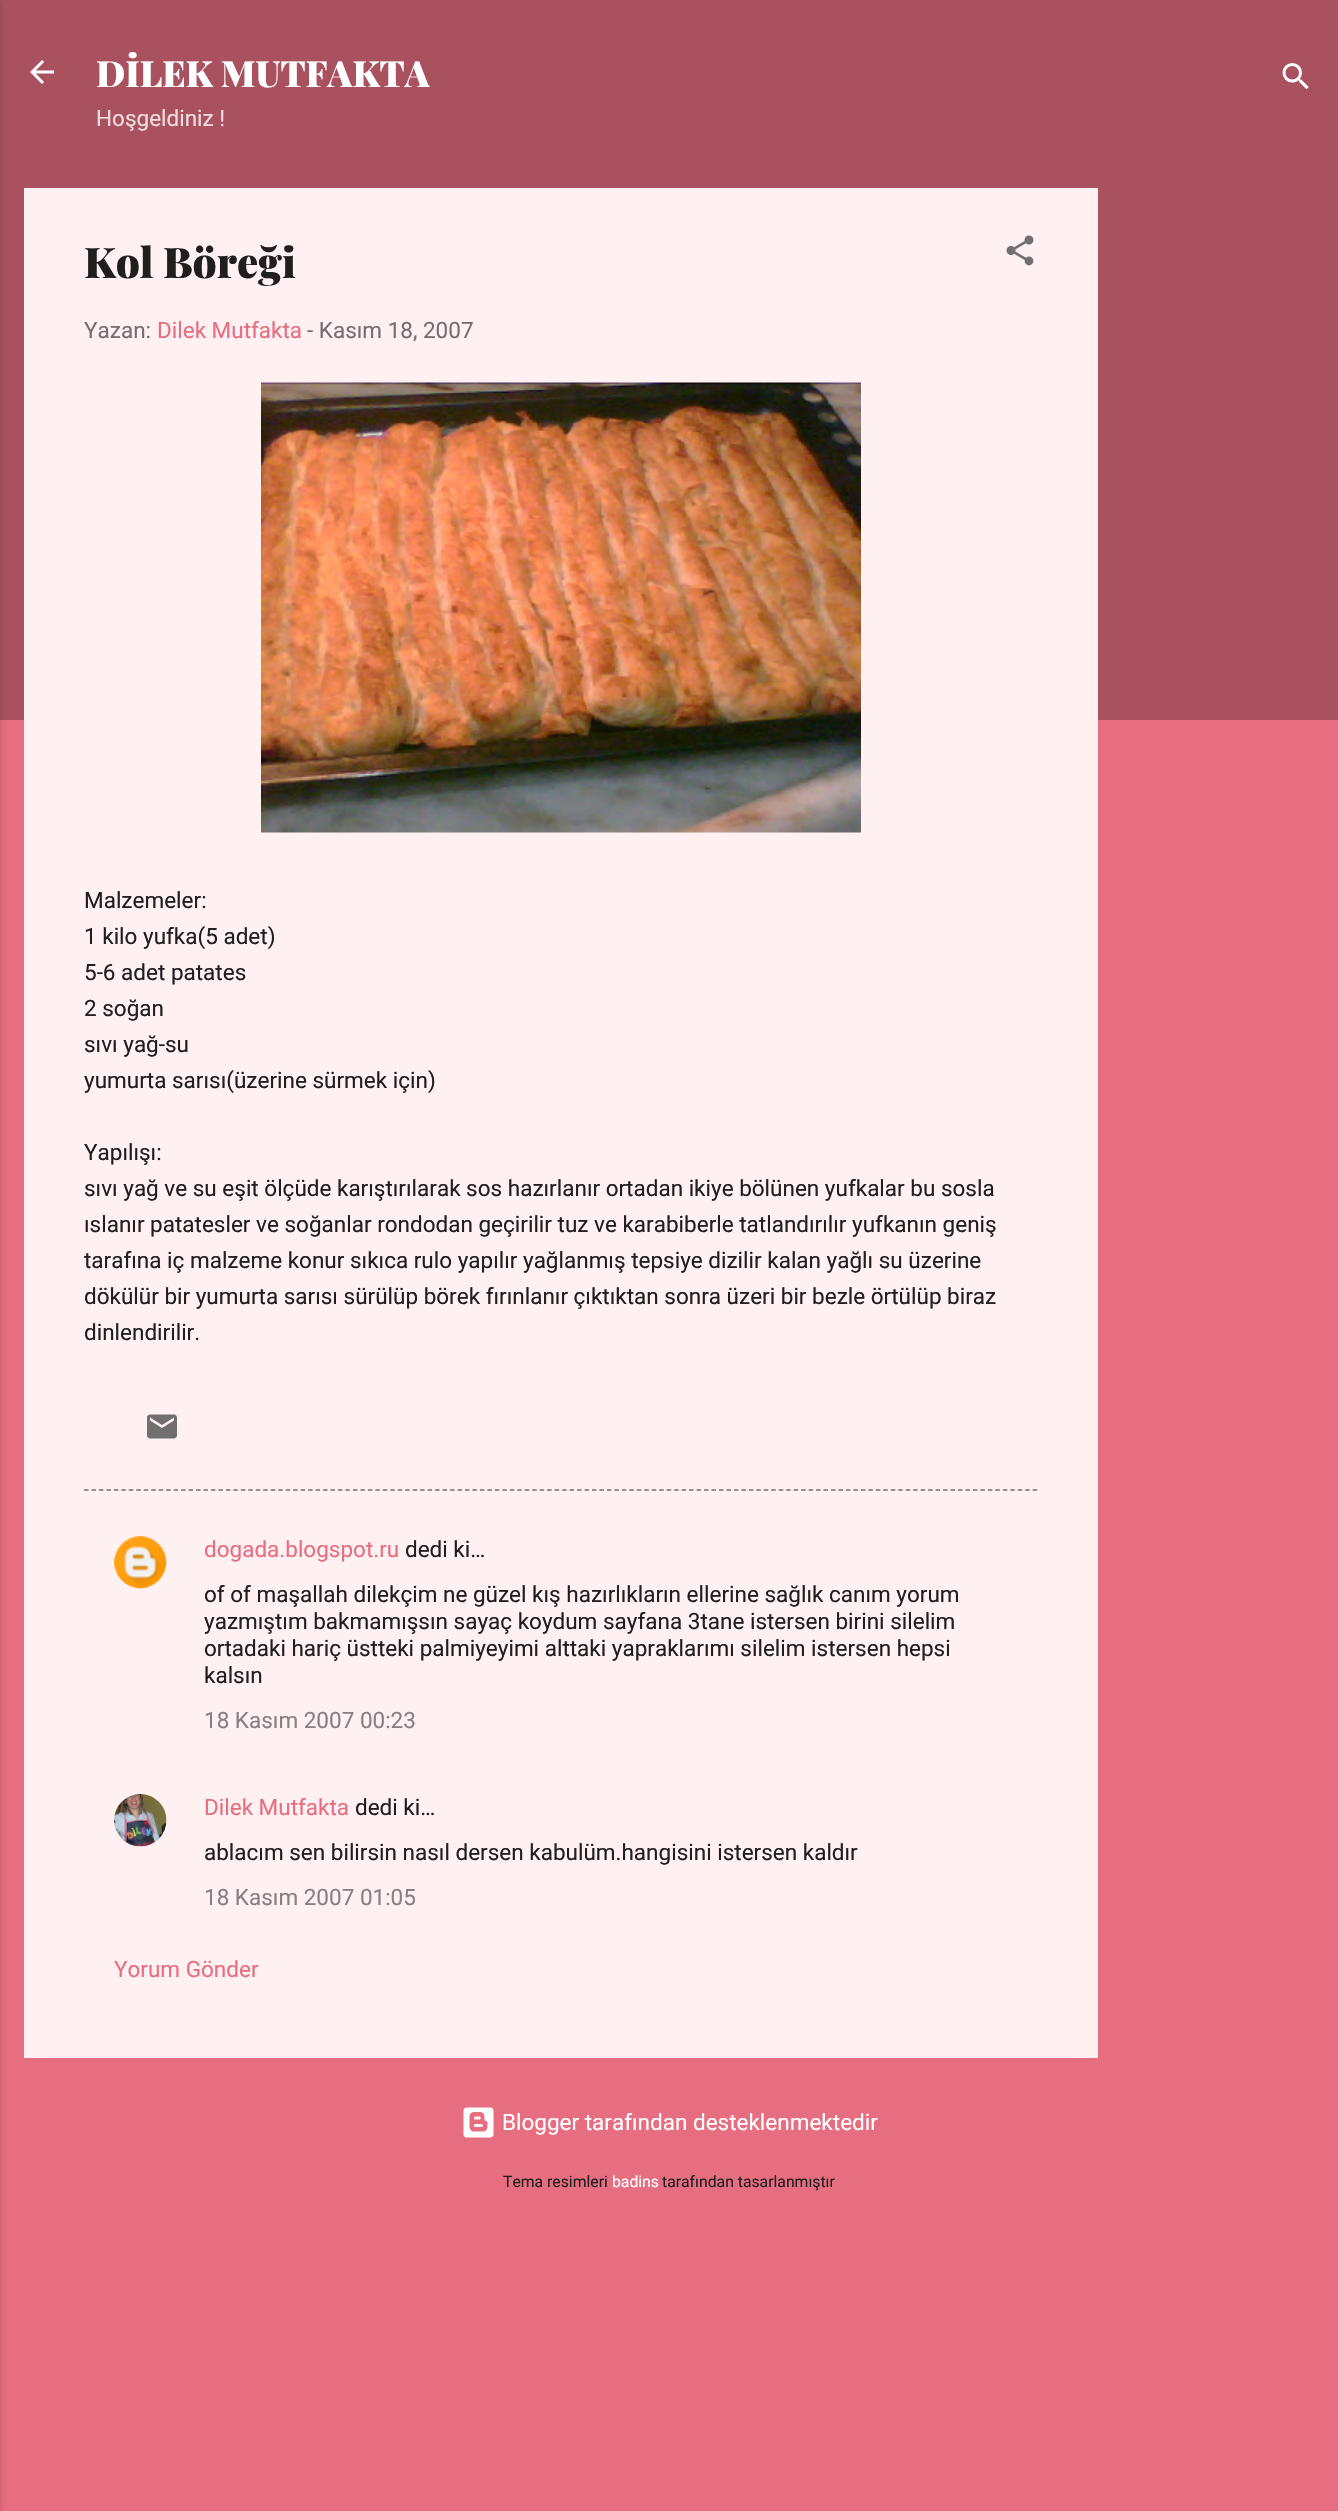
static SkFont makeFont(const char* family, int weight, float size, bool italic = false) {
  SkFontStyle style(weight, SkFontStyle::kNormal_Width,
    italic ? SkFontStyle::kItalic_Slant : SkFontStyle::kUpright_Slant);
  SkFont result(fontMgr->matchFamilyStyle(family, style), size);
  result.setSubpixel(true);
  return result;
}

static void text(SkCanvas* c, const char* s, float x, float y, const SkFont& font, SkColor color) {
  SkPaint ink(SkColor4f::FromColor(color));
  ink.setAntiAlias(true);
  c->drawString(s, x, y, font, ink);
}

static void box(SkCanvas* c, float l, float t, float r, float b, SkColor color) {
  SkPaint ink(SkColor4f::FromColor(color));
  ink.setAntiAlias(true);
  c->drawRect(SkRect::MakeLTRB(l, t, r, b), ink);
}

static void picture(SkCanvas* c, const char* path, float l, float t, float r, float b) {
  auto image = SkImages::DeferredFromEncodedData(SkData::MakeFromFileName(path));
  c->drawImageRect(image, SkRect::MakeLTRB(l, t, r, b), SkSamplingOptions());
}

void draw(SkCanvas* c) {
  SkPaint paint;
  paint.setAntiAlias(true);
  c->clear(0xffe76d80);
  box(c, 0, 0, 1338, 720, 0xffa9515f);
  paint.setColor(0x1a000000);
  paint.setMaskFilter(SkMaskFilter::MakeBlur(kNormal_SkBlurStyle, 2));
  c->drawRect(SkRect::MakeLTRB(-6, 2, 2, 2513), paint);
  paint.setMaskFilter(nullptr);
  picture(c, "img_01.png", 30, 60, 54, 84);
  SkFont face1 = makeFont("Playfair Display", 900, 36);
  text(c, "DİLEK MUTFAKTA", 96, 87, face1, 0xffffffff);
  SkFont face2 = makeFont("Roboto", 400, 22.5f);
  text(c, "Hoşgeldiniz !", 96, 126, face2, 0xffeedcdf);
  picture(c, "img_02.png", 1282, 63, 1309, 90);
  box(c, 24, 188, 1098, 2058, 0xfffff0f2);
  SkFont face3 = makeFont("Playfair Display", 900, 42);
  text(c, "Kol Böreği", 84, 278, face3, 0xff201f20);
  picture(c, "img_03.png", 1006, 235, 1034, 266);
  text(c, "Yazan:", 84, 338, face2, 0xff756e6f);
  text(c, "Dilek Mutfakta", 157, 338, face2, 0xffe76d80);
  text(c, "- Kasım 18, 2007", 307, 338, face2, 0xff756e6f);
  picture(c, "img_04.png", 261, 382, 861, 833);
  text(c, "Malzemeler:", 84, 908, face2, 0xff201f20);
  text(c, "1 kilo yufka(5 adet)", 84, 944, face2, 0xff201f20);
  text(c, "5-6 adet patates", 84, 980, face2, 0xff201f20);
  text(c, "2 soğan", 84, 1016, face2, 0xff201f20);
  text(c, "sıvı yağ-su", 84, 1052, face2, 0xff201f20);
  text(c, "yumurta sarısı(üzerine sürmek için)", 84, 1088, face2, 0xff201f20);
  text(c, "Yapılışı:", 84, 1160, face2, 0xff201f20);
  text(c, "sıvı yağ ve su eşit ölçüde karıştırılarak sos hazırlanır ortadan ikiye bölünen yufkalar bu sosla", 84, 1196, face2, 0xff201f20);
  text(c, "ıslanır patatesler ve soğanlar rondodan geçirilir tuz ve karabiberle tatlandırılır yufkanın geniş", 84, 1232, face2, 0xff201f20);
  text(c, "tarafına iç malzeme konur sıkıca rulo yapılır yağlanmış tepsiye dizilir kalan yağlı su üzerine", 84, 1268, face2, 0xff201f20);
  text(c, "dökülür bir yumurta sarısı sürülüp börek fırınlanır çıktıktan sonra üzeri bir bezle örtülüp biraz", 84, 1304, face2, 0xff201f20);
  text(c, "dinlendirilir.", 84, 1340, face2, 0xff201f20);
  picture(c, "img_05.png", 147, 1414, 177, 1439);
  paint.setStyle(SkPaint::kStroke_Style);
  paint.setStrokeWidth(1.5f);
  paint.setColor(0xff756e6f);
  paint.setPathEffect(SkDashPathEffect::Make({{4.5f, 2.97f}}, 0));
  c->drawPath(SkPathBuilder().moveTo(84, 1490).lineTo(1038, 1490).detach(), paint);
  paint.setPathEffect(nullptr);
  picture(c, "img_06.png", 114, 1536, 167, 1589);
  text(c, "dogada.blogspot.ru", 204, 1557, face2, 0xffe76d80);
  text(c, "dedi ki…", 405, 1557, face2, 0xff201f20);
  text(c, "of of maşallah dilekçim ne güzel kış hazırlıkların ellerine sağlık canım yorum", 204, 1602, face2, 0xff201f20);
  text(c, "yazmıştım bakmamışsın sayaç koydum sayfana 3tane istersen birini silelim", 204, 1629, face2, 0xff201f20);
  text(c, "ortadaki hariç üstteki palmiyeyimi alttaki yapraklarımı silelim istersen hepsi", 204, 1656, face2, 0xff201f20);
  text(c, "kalsın", 204, 1683, face2, 0xff201f20);
  text(c, "18 Kasım 2007 00:23", 204, 1728, face2, 0xff878081);
  picture(c, "img_07.png", 114, 1794, 167, 1847);
  text(c, "Dilek Mutfakta", 204, 1815, face2, 0xffe76d80);
  text(c, "dedi ki…", 355, 1815, face2, 0xff201f20);
  text(c, "ablacım sen bilirsin nasıl dersen kabulüm.hangisini istersen kaldır", 204, 1860, face2, 0xff201f20);
  text(c, "18 Kasım 2007 01:05", 204, 1905, face2, 0xff878081);
  text(c, "Yorum Gönder", 114, 1977, face2, 0xffe76d80);
  picture(c, "img_08.png", 463, 2107, 494, 2138);
  text(c, "Blogger tarafından desteklenmektedir", 502, 2130, face2, 0xffffffff);
  SkFont face4 = makeFont("Roboto", 400, 15.75f);
  text(c, "Tema resimleri", 503, 2187, face4, 0xff201f20);
  text(c, "badins", 612, 2187, face4, 0xffffffff);
  text(c, "tarafından tasarlanmıştır", 662, 2187, face4, 0xff201f20);
}
